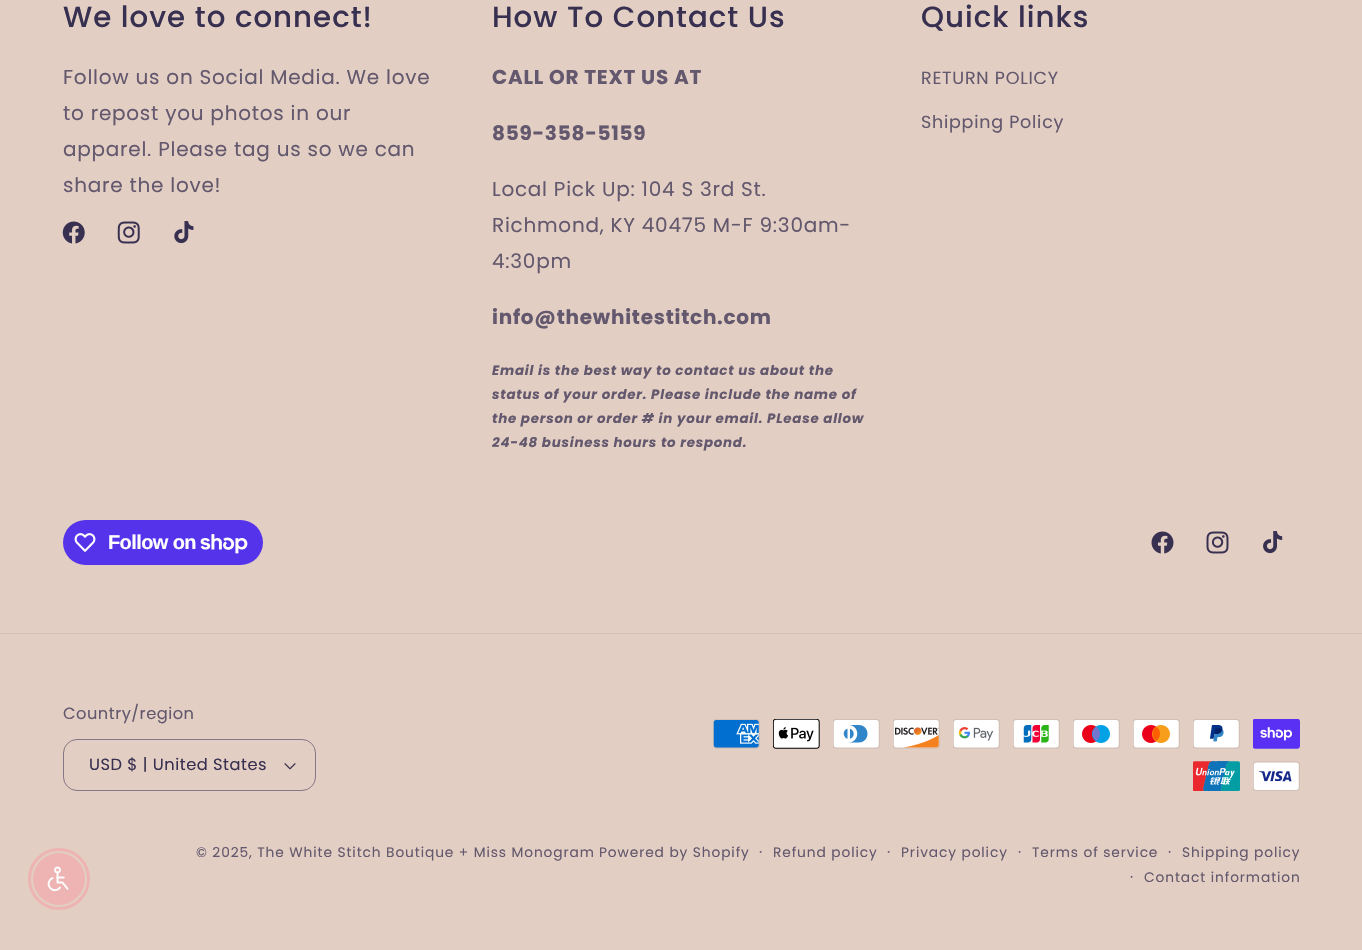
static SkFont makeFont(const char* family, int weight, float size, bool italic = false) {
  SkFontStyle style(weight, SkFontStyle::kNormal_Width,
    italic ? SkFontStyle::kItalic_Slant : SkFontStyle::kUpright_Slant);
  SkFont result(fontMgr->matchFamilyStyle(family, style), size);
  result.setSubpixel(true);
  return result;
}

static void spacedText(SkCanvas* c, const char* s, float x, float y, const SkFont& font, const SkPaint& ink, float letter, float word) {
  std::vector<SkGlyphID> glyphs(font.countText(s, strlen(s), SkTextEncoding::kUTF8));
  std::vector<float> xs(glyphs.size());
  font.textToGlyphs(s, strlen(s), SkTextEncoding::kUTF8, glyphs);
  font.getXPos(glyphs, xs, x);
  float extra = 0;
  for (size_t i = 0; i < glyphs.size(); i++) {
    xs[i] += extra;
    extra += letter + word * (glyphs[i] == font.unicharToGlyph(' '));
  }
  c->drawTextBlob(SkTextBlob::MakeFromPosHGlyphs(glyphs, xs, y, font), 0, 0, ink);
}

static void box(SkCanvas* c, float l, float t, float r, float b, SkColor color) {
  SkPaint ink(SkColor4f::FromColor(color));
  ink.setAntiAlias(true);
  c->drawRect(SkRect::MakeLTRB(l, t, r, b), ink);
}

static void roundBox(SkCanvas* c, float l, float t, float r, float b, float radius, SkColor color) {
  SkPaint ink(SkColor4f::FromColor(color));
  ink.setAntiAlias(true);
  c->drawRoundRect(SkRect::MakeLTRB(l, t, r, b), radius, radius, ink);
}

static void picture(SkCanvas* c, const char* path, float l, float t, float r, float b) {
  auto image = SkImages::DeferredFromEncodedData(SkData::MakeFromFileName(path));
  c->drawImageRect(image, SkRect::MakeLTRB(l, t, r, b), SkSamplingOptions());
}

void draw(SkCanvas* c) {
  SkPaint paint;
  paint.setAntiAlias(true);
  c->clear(0xffe2cec3);
  paint.setStyle(SkPaint::kStroke_Style);
  paint.setStrokeWidth(3);
  paint.setColor(0xffeeb4b4);
  c->drawCircle(59, 879, 29.5f, paint);
  paint.setStyle(SkPaint::kFill_Style);
  c->drawCircle(59, 879, 25.5f, paint);
  paint.setStyle(SkPaint::kStroke_Style);
  paint.setStrokeWidth(1);
  c->drawCircle(59, 879, 25.5f, paint);
  picture(c, "img_01.png", 47, 866, 69, 892);
  SkFont face1 = makeFont("Poppins", 500, 29.25f);
  paint.setStyle(SkPaint::kFill_Style);
  paint.setColor(0xff383050);
  spacedText(c, "We love to connect!", 63, 27, face1, paint, 1, 0);
  SkFont face2 = makeFont("Poppins", 400, 20);
  paint.setColor(0xff63586d);
  spacedText(c, "Follow us on Social Media. We love", 63, 84, face2, paint, 0.75f, 0);
  spacedText(c, "to repost you photos in our", 63, 120, face2, paint, 0.75f, 0);
  spacedText(c, "apparel. Please tag us so we can", 63, 156, face2, paint, 0.75f, 0);
  spacedText(c, "share the love!", 63, 192, face2, paint, 0.75f, 0);
  picture(c, "img_02.png", 62, 221, 85, 244);
  picture(c, "img_03.png", 117, 221, 140, 244);
  picture(c, "img_04.png", 174, 221, 194, 244);
  paint.setColor(0xff383050);
  spacedText(c, "How To Contact Us", 492, 27, face1, paint, 1, 0);
  SkFont face3 = makeFont("Poppins", 700, 20);
  paint.setColor(0xff63586d);
  spacedText(c, "CALL OR TEXT US AT", 492, 84, face3, paint, 0.75f, 0);
  spacedText(c, "859-358-5159", 492, 140, face3, paint, 0.75f, 0);
  spacedText(c, "Local Pick Up: 104 S 3rd St.", 492, 196, face2, paint, 0.75f, 0);
  spacedText(c, "Richmond, KY 40475 M-F 9:30am-", 492, 232, face2, paint, 0.75f, 0);
  spacedText(c, "4:30pm", 492, 268, face2, paint, 0.75f, 0);
  spacedText(c, "info@thewhitestitch.com", 492, 324, face3, paint, 0.75f, 0);
  SkFont face4 = makeFont("Poppins", 700, 13.4f, true);
  spacedText(c, "Email is the best way to contact us about the", 492, 375, face4, paint, 0.75f, 0);
  spacedText(c, "status of your order. Please include the name of", 492, 399, face4, paint, 0.75f, 0);
  spacedText(c, "the person or order # in your email. PLease allow", 492, 423, face4, paint, 0.75f, 0);
  spacedText(c, "24-48 business hours to respond.", 492, 447, face4, paint, 0.75f, 0);
  paint.setColor(0xff383050);
  spacedText(c, "Quick links", 921, 27, face1, paint, 1, 0);
  SkFont face5 = makeFont("Poppins", 400, 17.5f);
  paint.setColor(0xff63586d);
  spacedText(c, "RETURN POLICY", 921, 84, face5, paint, 0.75f, 0);
  spacedText(c, "Shipping Policy", 921, 128, face5, paint, 0.75f, 0);
  roundBox(c, 63, 520, 263, 565, 22.5f, 0xff5433eb);
  picture(c, "img_05.png", 74, 533, 96, 552);
  SkFont face6 = makeFont("Liberation Sans", 700, 20);
  paint.setColor(0xffffffff);
  spacedText(c, "Follow on", 108, 549, face6, paint, -0.6f, 0);
  picture(c, "img_06.png", 200, 534, 248, 554);
  picture(c, "img_07.png", 1151, 531, 1174, 554);
  picture(c, "img_08.png", 1206, 531, 1229, 554);
  picture(c, "img_09.png", 1263, 531, 1283, 554);
  box(c, 0, 633, 1362, 634, 0xffd4c1ba);
  SkFont face7 = makeFont("Poppins", 400, 16.25f);
  paint.setColor(0xff63586d);
  spacedText(c, "Country/region", 63, 719, face7, paint, 0.5f, 0);
  picture(c, "img_10.png", 284, 763, 296, 770);
  paint.setStyle(SkPaint::kStroke_Style);
  paint.setColor(0xff857784);
  c->drawRoundRect(SkRect::MakeLTRB(63.5f, 739.5f, 315.5f, 790.5f), 13.5f, 13.5f, paint);
  paint.setStyle(SkPaint::kFill_Style);
  paint.setColor(0xff383050);
  spacedText(c, "USD $ | United States", 89, 770, face7, paint, 0.5f, 0);
  picture(c, "img_11.png", 713, 719, 760, 749);
  picture(c, "img_12.png", 773, 719, 820, 749);
  picture(c, "img_13.png", 833, 719, 880, 749);
  picture(c, "img_14.png", 893, 719, 940, 749);
  picture(c, "img_15.png", 953, 719, 1000, 749);
  picture(c, "img_16.png", 1013, 719, 1060, 749);
  picture(c, "img_17.png", 1073, 719, 1120, 749);
  picture(c, "img_18.png", 1133, 719, 1180, 749);
  picture(c, "img_19.png", 1193, 719, 1240, 749);
  picture(c, "img_20.png", 1253, 719, 1300, 749);
  picture(c, "img_21.png", 1193, 761, 1240, 791);
  picture(c, "img_22.png", 1253, 761, 1300, 791);
  SkFont face8 = makeFont("Poppins", 400, 13.75f);
  paint.setColor(0xff63586d);
  spacedText(c, "© 2025, The White Stitch Boutique + Miss Monogram", 196, 857, face8, paint, 0.9f, 0);
  spacedText(c, "Powered by Shopify", 599, 857, face8, paint, 0.9f, 0);
  SkFont face9 = makeFont("Poppins", 400, 15);
  spacedText(c, "·", 759, 857, face9, paint, 0.9f, 0);
  spacedText(c, "Refund policy", 773, 857, face8, paint, 0.9f, 0);
  spacedText(c, "·", 887, 857, face9, paint, 0.9f, 0);
  spacedText(c, "Privacy policy", 901, 857, face8, paint, 0.9f, 0);
  spacedText(c, "·", 1018, 857, face9, paint, 0.9f, 0);
  spacedText(c, "Terms of service", 1032, 857, face8, paint, 0.9f, 0);
  spacedText(c, "·", 1168, 857, face9, paint, 0.9f, 0);
  spacedText(c, "Shipping policy", 1182, 857, face8, paint, 0.9f, 0);
  spacedText(c, "·", 1130, 882, face9, paint, 0.9f, 0);
  spacedText(c, "Contact information", 1144, 882, face8, paint, 0.9f, 0);
}
